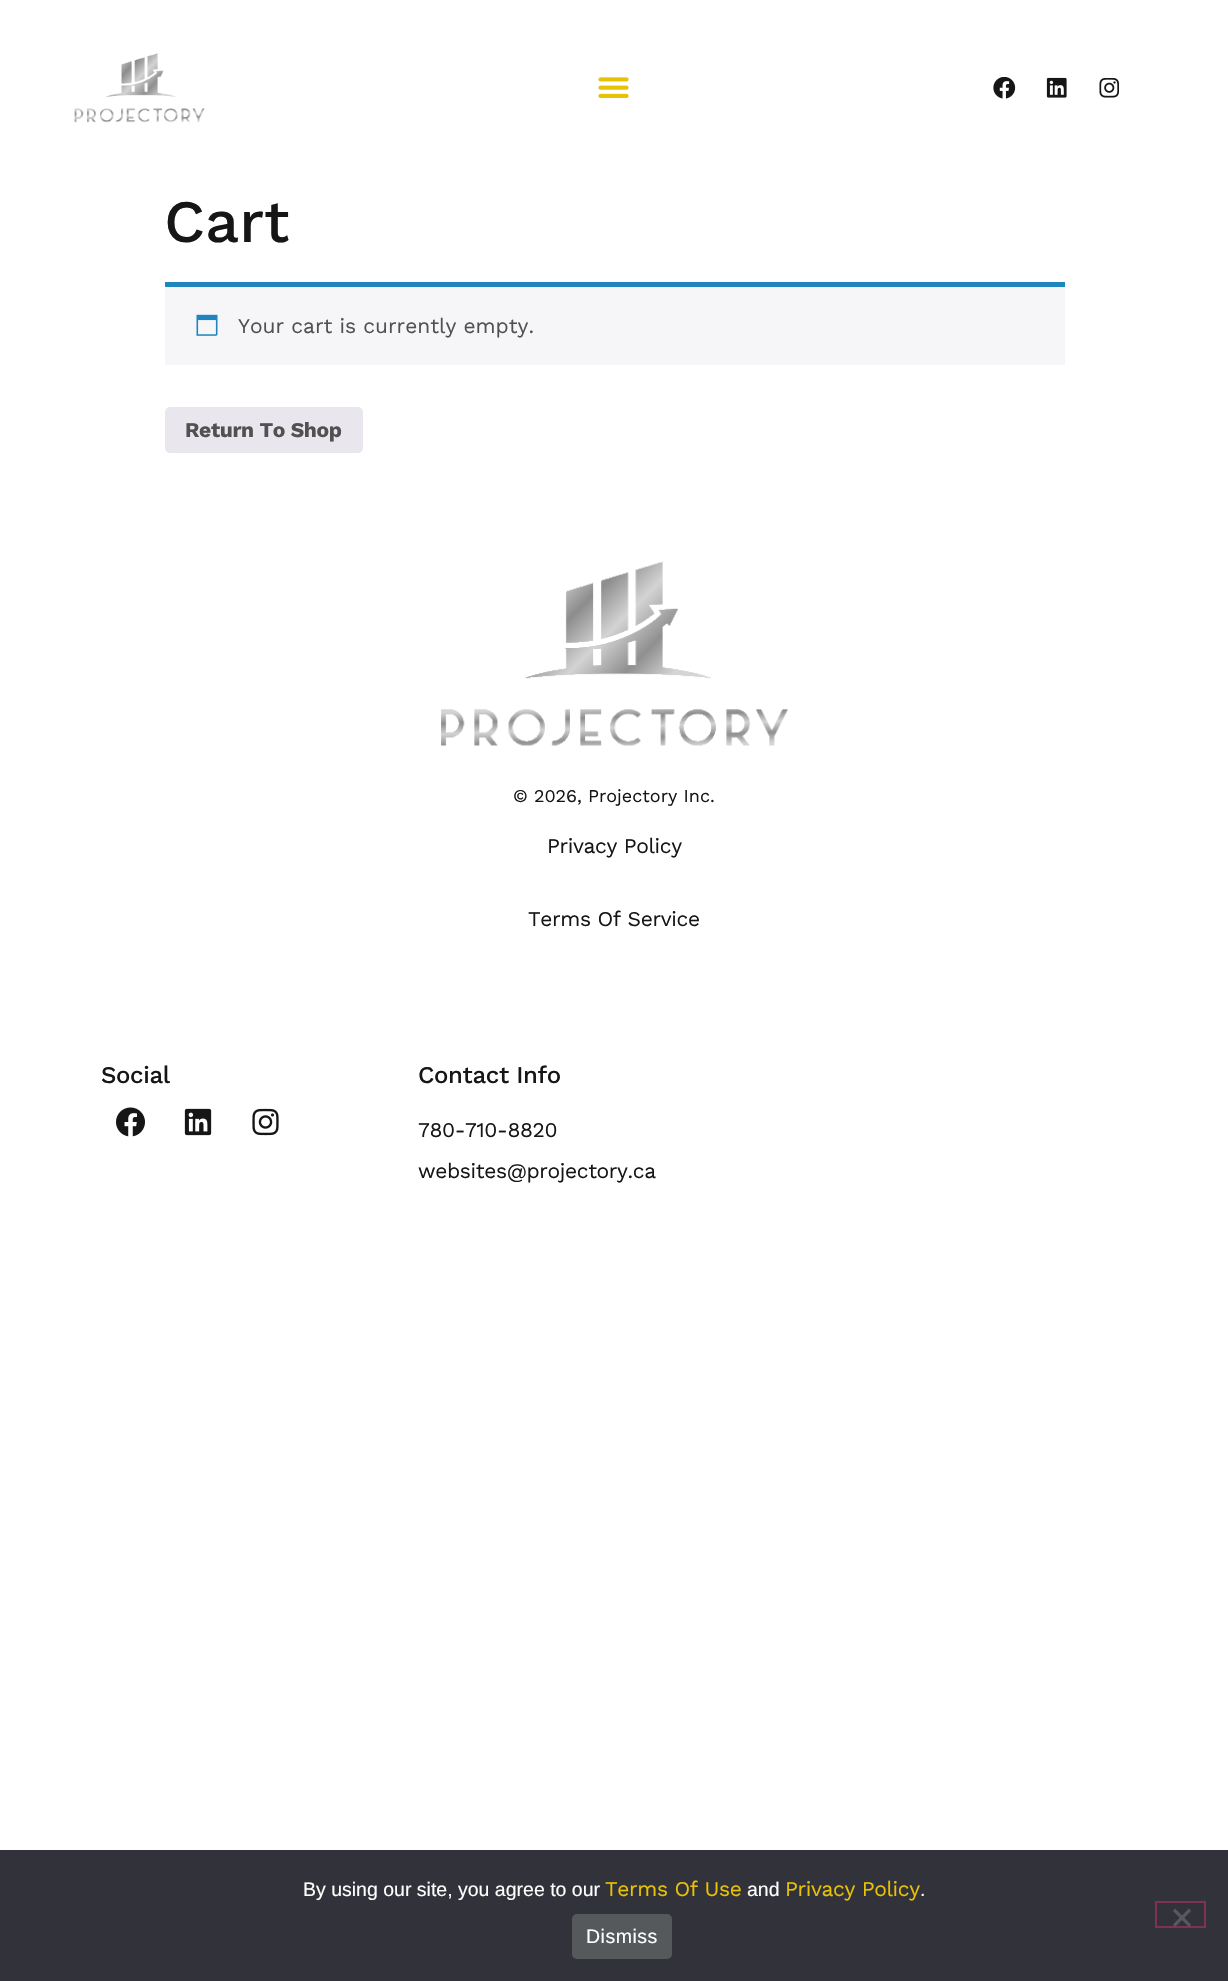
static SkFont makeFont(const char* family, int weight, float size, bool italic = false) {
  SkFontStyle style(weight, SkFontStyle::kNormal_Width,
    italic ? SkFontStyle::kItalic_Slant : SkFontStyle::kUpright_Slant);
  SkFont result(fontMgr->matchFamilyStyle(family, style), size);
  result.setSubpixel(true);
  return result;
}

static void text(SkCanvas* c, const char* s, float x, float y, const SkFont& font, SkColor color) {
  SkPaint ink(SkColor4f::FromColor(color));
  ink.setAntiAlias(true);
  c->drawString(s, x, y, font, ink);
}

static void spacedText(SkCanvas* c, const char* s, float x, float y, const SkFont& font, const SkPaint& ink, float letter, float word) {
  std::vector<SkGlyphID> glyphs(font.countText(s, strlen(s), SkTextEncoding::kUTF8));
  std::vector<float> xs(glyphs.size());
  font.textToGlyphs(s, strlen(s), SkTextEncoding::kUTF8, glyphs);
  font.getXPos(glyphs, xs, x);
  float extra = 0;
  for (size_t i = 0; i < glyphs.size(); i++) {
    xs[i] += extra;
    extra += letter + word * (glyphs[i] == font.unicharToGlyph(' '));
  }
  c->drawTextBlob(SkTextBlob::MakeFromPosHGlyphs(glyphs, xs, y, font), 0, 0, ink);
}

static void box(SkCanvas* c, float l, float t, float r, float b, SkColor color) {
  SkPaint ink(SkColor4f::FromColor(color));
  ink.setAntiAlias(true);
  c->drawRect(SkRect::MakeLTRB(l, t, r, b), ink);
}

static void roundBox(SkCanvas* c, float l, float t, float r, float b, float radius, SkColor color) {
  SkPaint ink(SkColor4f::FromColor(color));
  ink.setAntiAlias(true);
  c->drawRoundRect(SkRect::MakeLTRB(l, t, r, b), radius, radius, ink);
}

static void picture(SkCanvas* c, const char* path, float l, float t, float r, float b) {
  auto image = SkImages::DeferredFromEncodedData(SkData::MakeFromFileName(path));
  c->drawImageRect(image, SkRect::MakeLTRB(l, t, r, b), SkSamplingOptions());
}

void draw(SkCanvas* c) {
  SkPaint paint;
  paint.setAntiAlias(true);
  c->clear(0xffffffff);
  picture(c, "img_01.png", 74, 53, 205, 123);
  picture(c, "img_02.png", 598, 77, 629, 98);
  picture(c, "img_03.png", 993, 77, 1016, 99);
  picture(c, "img_04.png", 1046, 77, 1067, 98);
  picture(c, "img_05.png", 1099, 78, 1120, 98);
  SkFont face1 = makeFont("Work Sans", 500, 60);
  text(c, "Cart", 164, 242, face1, 0xff161616);
  box(c, 165, 287, 1065, 365, 0xfff6f5f8);
  box(c, 165, 282, 1065, 287, 0xff1e85be);
  picture(c, "img_06.png", 196, 314, 218, 336);
  SkFont face2 = makeFont("Work Sans", 400, 21);
  text(c, "Your cart is currently empty.", 238, 333, face2, 0xff515151);
  roundBox(c, 165, 407, 363, 453, 5, 0xffe9e6ed);
  SkFont face3 = makeFont("Work Sans", 700, 21);
  paint.setColor(0xff515151);
  spacedText(c, "Return To Shop", 185, 437, face3, paint, -0.35f, 0);
  picture(c, "img_07.png", 441, 561, 788, 746);
  SkFont face4 = makeFont("Work Sans", 400, 18);
  text(c, "© 2026, Projectory Inc.", 513, 802, face4, 0xff161616);
  paint.setColor(0xff161616);
  spacedText(c, "Privacy Policy", 547, 853, face2, paint, -0.35f, 0);
  spacedText(c, "Terms Of Service", 528, 926, face2, paint, -0.35f, 0);
  SkFont face5 = makeFont("Work Sans", 500, 24);
  spacedText(c, "Social", 101, 1083, face5, paint, -0.35f, 0);
  picture(c, "img_08.png", 116, 1107, 145, 1137);
  picture(c, "img_09.png", 184, 1108, 212, 1136);
  picture(c, "img_10.png", 252, 1108, 279, 1136);
  spacedText(c, "Contact Info", 418, 1083, face5, paint, -0.35f, 0);
  spacedText(c, "780-710-8820", 418, 1137, face2, paint, -0.35f, 0);
  spacedText(c, "websites@projectory.ca", 418, 1178, face2, paint, -0.35f, 0);
  box(c, 0, 1850, 1228, 1981, 0xff32323a);
  SkFont face6 = makeFont("Liberation Sans", 400, 19.5f);
  text(c, "By using our site, you agree to our", 303, 1896, face6, 0xffffffff);
  paint.setColor(0xffe8c204);
  spacedText(c, "Terms Of Use", 605, 1896, face2, paint, -0.35f, 0);
  text(c, "and", 747, 1896, face6, 0xffffffff);
  spacedText(c, "Privacy Policy", 785, 1896, face2, paint, -0.35f, 0);
  text(c, ".", 920, 1896, face6, 0xffffffff);
  paint.setStyle(SkPaint::kStroke_Style);
  paint.setStrokeWidth(2);
  paint.setColor(0xff7f3350);
  c->drawRect(SkRect::MakeLTRB(1156, 1902, 1205, 1927), paint);
  paint.setStyle(SkPaint::kFill_Style);
  paint.setColor(0xff59595d);
  c->drawPath(SkPathBuilder().moveTo(1189, 1908.5f).lineTo(1191, 1911).lineTo(1175, 1927).lineTo(1173, 1924.5f).close().detach(), paint);
  c->drawPath(SkPathBuilder().moveTo(1173, 1911).lineTo(1175, 1908.5f).lineTo(1191, 1924.5f).lineTo(1189, 1927).close().detach(), paint);
  roundBox(c, 572, 1914, 672, 1959, 5, 0xff55595c);
  paint.setColor(0xffffffff);
  spacedText(c, "Dismiss", 586, 1943, face6, paint, 0.5f, 0);
}
